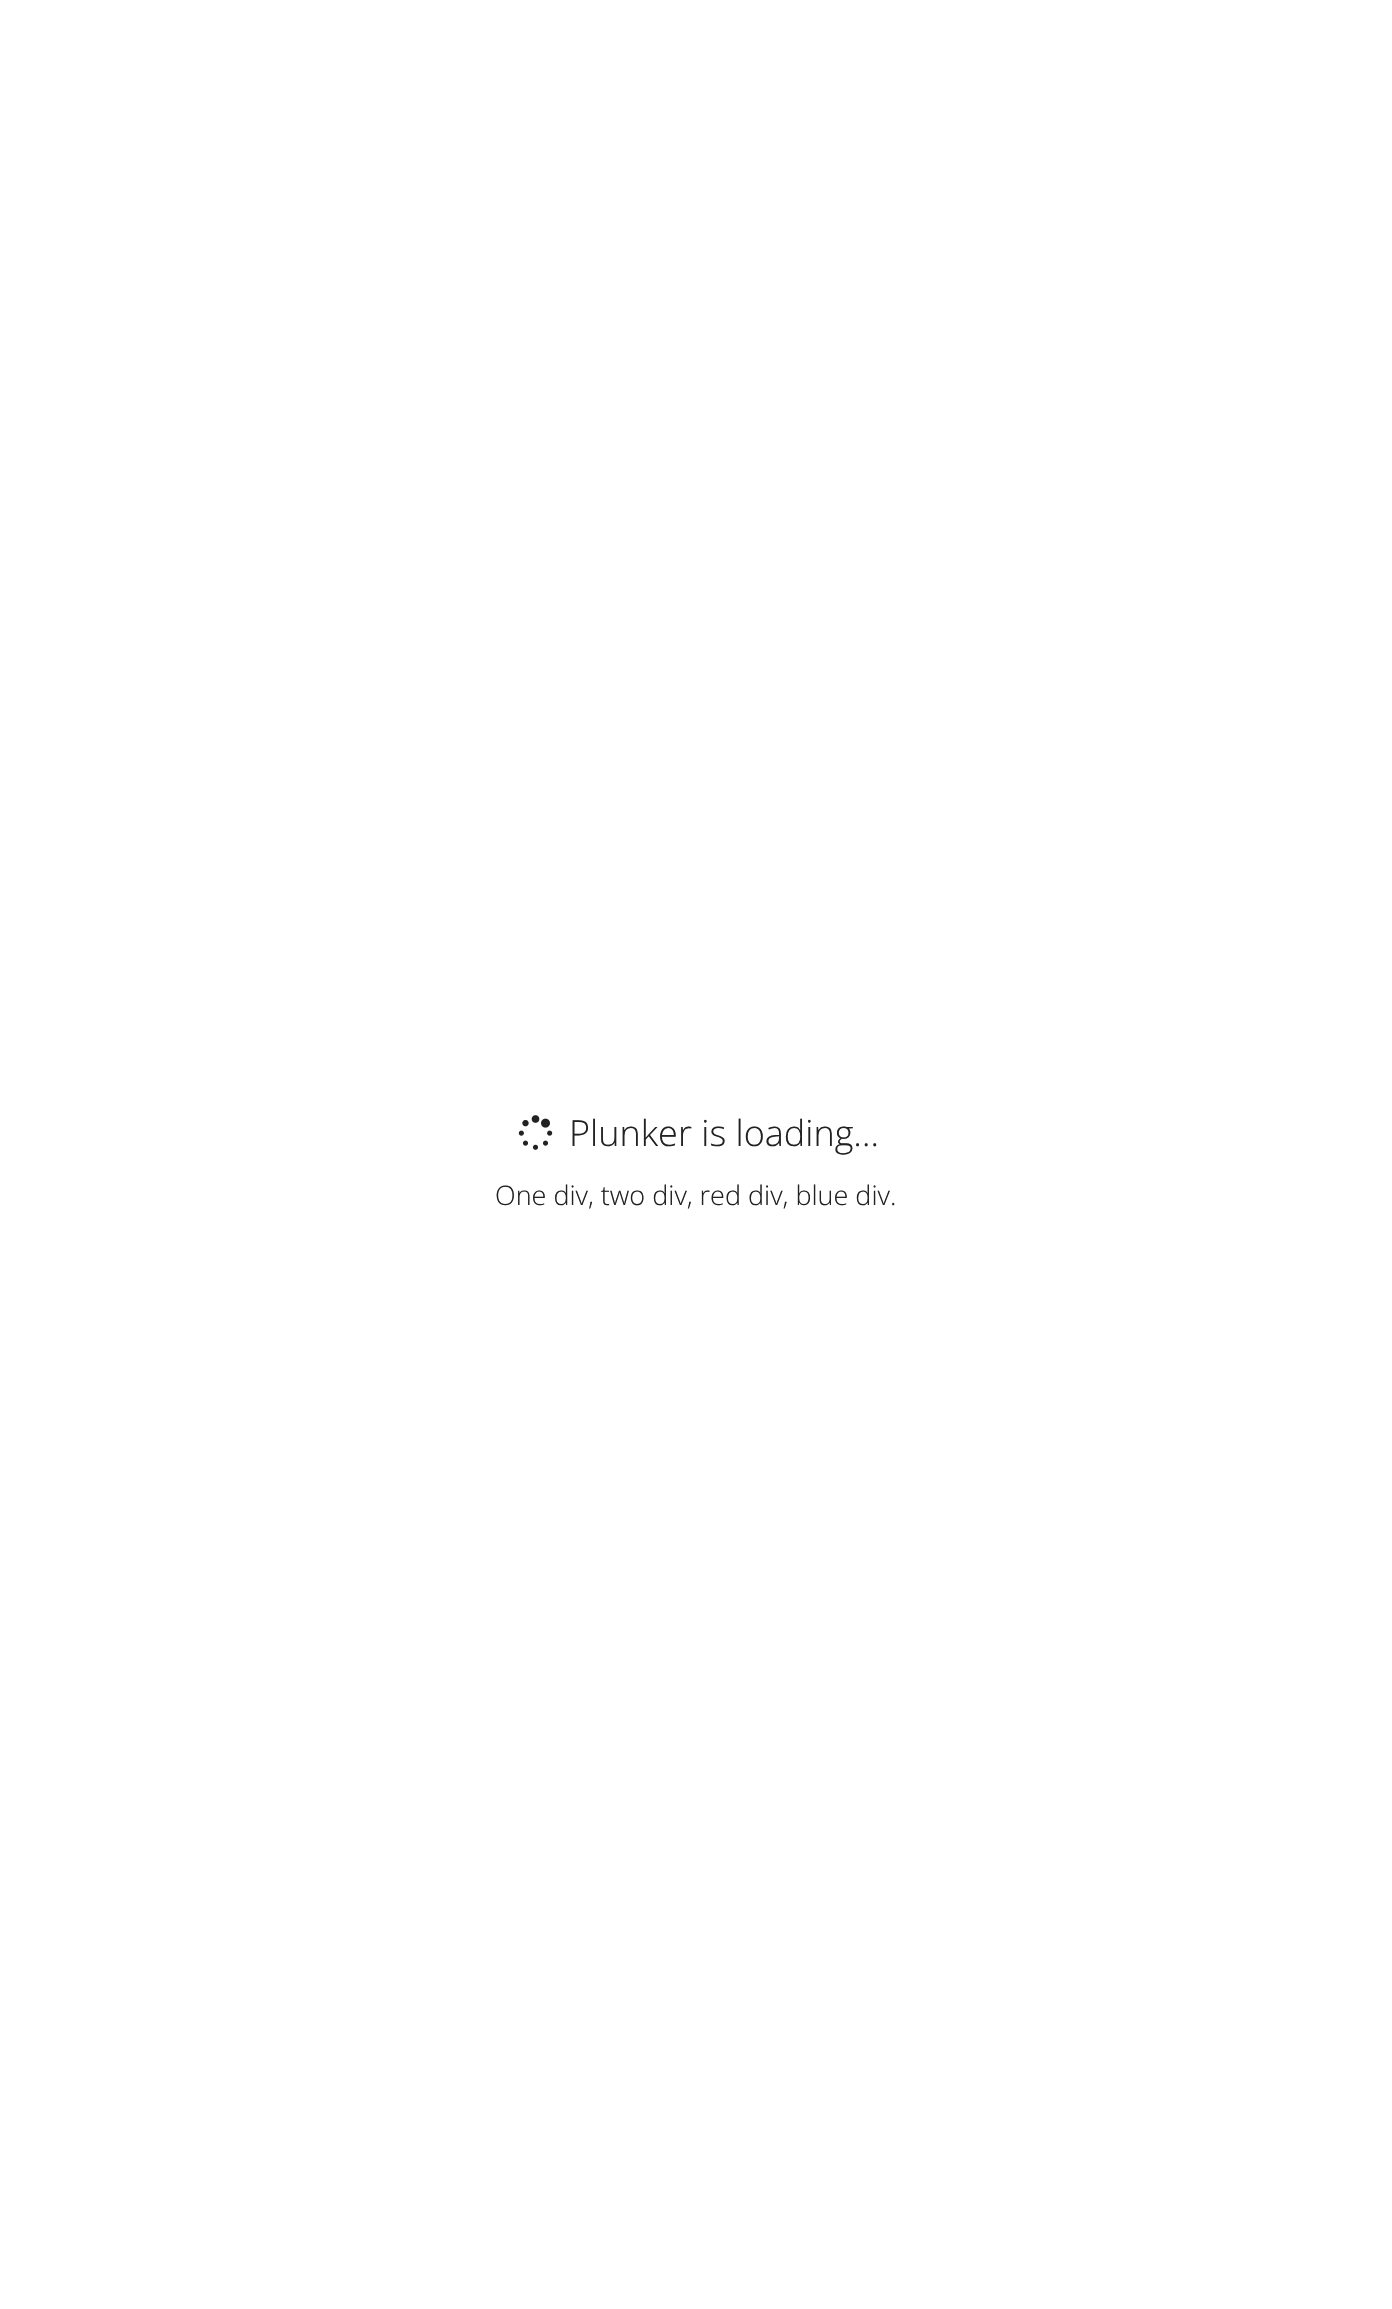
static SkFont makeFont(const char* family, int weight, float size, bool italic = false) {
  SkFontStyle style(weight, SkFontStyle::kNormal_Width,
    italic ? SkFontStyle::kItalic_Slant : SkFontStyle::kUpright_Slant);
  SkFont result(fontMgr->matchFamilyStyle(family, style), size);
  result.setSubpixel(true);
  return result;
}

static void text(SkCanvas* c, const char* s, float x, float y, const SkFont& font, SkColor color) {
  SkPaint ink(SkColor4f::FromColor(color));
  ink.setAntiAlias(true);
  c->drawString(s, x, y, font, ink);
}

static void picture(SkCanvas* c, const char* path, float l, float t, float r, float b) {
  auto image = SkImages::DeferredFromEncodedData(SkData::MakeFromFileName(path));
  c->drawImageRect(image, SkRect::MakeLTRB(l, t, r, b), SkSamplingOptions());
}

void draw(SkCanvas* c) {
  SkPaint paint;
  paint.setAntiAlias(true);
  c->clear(0xffffffff);
  picture(c, "img_01.png", 518, 1115, 553, 1150);
  SkFont face1 = makeFont("Open Sans", 300, 36);
  text(c, "Plunker is loading…", 569, 1146, face1, 0xff222222);
  SkFont face2 = makeFont("Open Sans", 300, 27);
  text(c, "One div, two div, red div, blue div.", 495, 1205, face2, 0xff222222);
}
